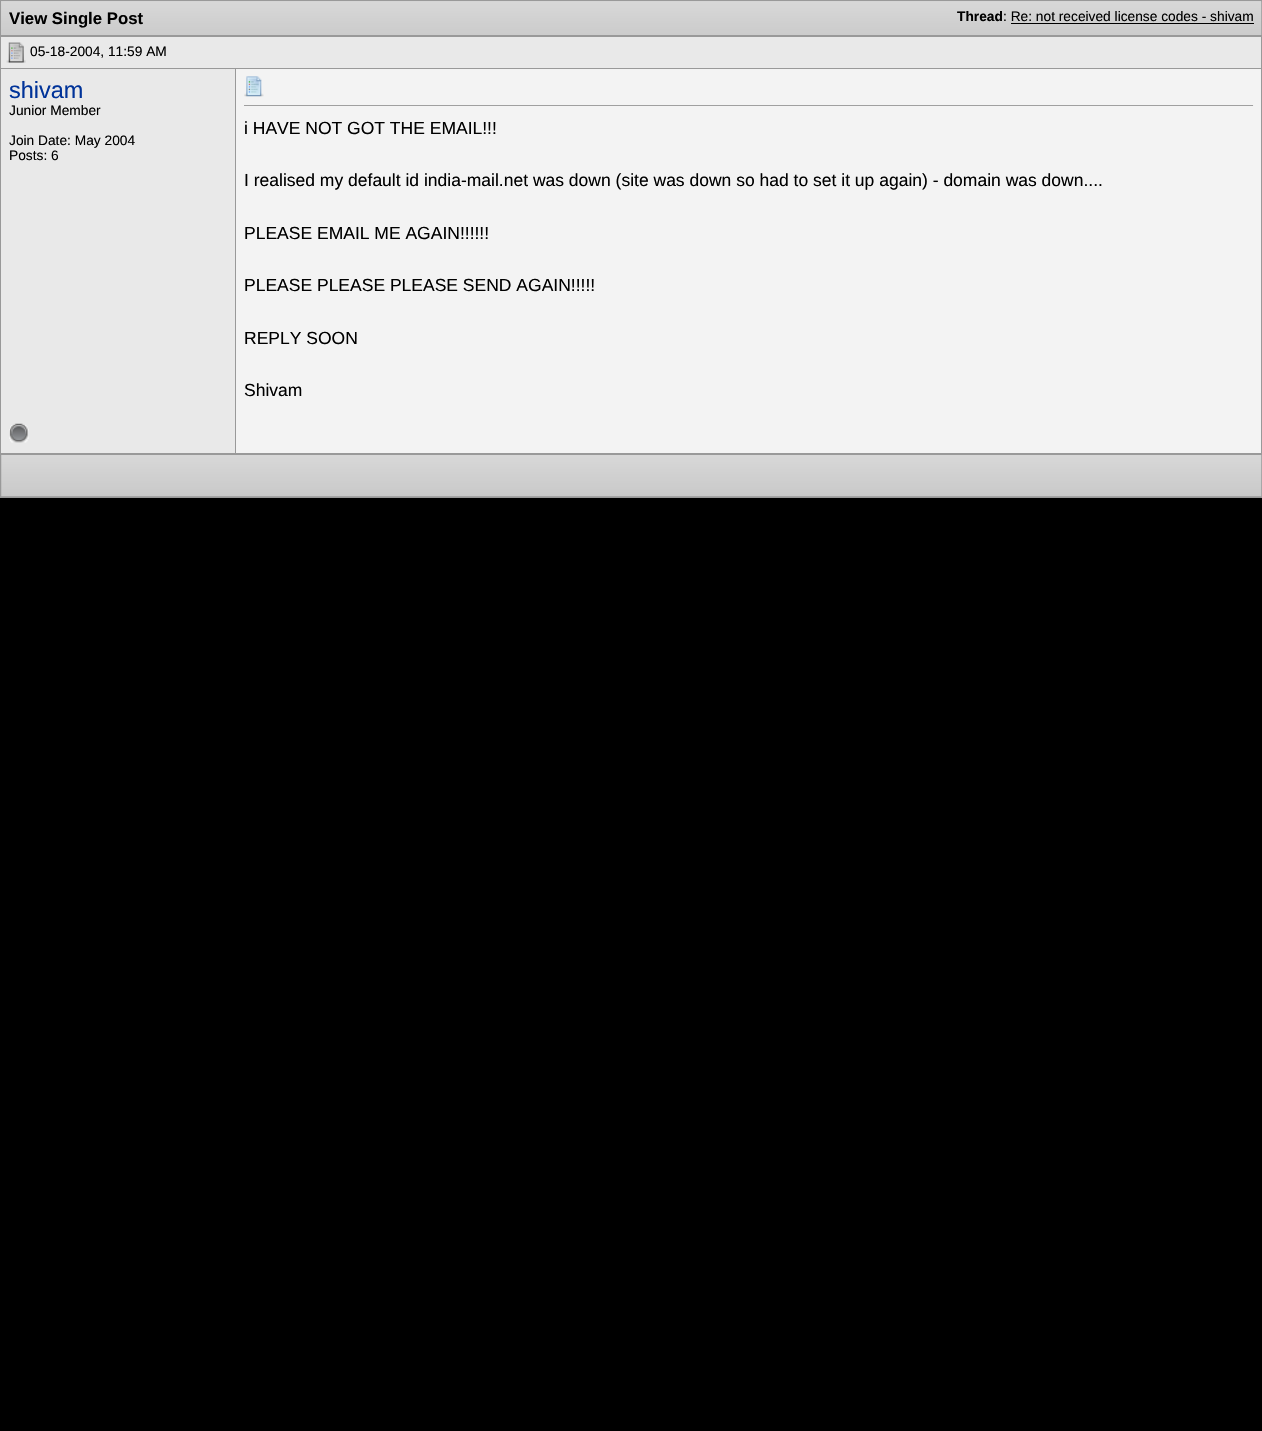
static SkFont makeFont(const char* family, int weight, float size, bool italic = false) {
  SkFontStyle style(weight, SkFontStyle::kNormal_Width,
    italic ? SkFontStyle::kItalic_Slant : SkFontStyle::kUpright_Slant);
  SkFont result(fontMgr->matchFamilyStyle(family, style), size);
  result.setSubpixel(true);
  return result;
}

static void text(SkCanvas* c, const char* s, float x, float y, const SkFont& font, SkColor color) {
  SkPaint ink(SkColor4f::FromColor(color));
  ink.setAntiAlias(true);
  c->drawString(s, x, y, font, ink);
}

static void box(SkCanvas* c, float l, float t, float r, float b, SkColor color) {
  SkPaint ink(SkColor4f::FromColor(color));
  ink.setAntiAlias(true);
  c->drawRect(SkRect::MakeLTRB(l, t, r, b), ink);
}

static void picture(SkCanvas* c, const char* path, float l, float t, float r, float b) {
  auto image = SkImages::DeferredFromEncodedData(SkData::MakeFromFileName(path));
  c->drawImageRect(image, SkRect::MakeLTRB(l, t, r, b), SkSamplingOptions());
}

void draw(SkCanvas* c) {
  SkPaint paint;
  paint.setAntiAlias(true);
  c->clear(0xff000000);
  box(c, 0, 0, 1262, 36, 0xff999999);
  box(c, 1, 1, 1261, 35, 0xffcccccc);
  picture(c, "img_01.png", 1, 1, 1262, 35);
  SkFont face1 = makeFont("Liberation Sans", 700, 16.75f);
  text(c, "View Single Post", 9, 24, face1, 0xff000000);
  SkFont face2 = makeFont("Liberation Sans", 700, 13.75f);
  text(c, "Thread", 957, 21, face2, 0xff000000);
  SkFont face3 = makeFont("Liberation Sans", 400, 13.75f);
  text(c, ": Re: not received license codes - shivam", 1003, 21, face3, 0xff000000);
  box(c, 1011, 23, 1254, 24, 0xff000000);
  box(c, 1, 37, 1261, 68, 0xffe9e9e9);
  box(c, 0, 36, 1262, 37, 0xff999999);
  box(c, 0, 68, 236, 69, 0xff999999);
  box(c, 0, 36, 1, 411, 0xff999999);
  picture(c, "img_02.png", 6, 42, 26, 63);
  text(c, "05-18-2004, 11:59 AM", 30, 56, face3, 0xff000000);
  box(c, 1261, 36, 1262, 454, 0xff999999);
  box(c, 236, 68, 1262, 69, 0xff999999);
  box(c, 1, 69, 235, 453, 0xffe9e9e9);
  box(c, 235, 69, 236, 454, 0xff999999);
  SkFont face4 = makeFont("Liberation Sans", 400, 23.5f);
  text(c, "shivam", 9, 98, face4, 0xff003399);
  text(c, "Junior Member", 9, 115, face3, 0xff000000);
  text(c, "Join Date: May 2004", 9, 145, face3, 0xff000000);
  text(c, "Posts: 6", 9, 160, face3, 0xff000000);
  box(c, 236, 69, 1261, 453, 0xfff3f3f3);
  picture(c, "img_03.png", 244, 76, 264, 97);
  box(c, 244, 105, 1254, 106, 0xff9f9f9f);
  box(c, 1253, 105, 1254, 106, 0xffeeeeee);
  SkFont face5 = makeFont("Liberation Sans", 400, 17.5f);
  text(c, "i HAVE NOT GOT THE EMAIL!!!", 244, 134, face5, 0xff000000);
  text(c, "I realised my default id india-mail.net was down (site was down so had to set it up again) - domain was down....", 244, 186, face5, 0xff000000);
  text(c, "PLEASE EMAIL ME AGAIN!!!!!!", 244, 239, face5, 0xff000000);
  text(c, "PLEASE PLEASE PLEASE SEND AGAIN!!!!!", 244, 291, face5, 0xff000000);
  text(c, "REPLY SOON", 244, 344, face5, 0xff000000);
  text(c, "Shivam", 244, 396, face5, 0xff000000);
  box(c, 0, 453, 1262, 498, 0xff999999);
  box(c, 0, 411, 1, 454, 0xff999999);
  picture(c, "img_04.png", 9, 423, 29, 443);
  picture(c, "img_05.png", 1, 455, 1262, 497);
}
